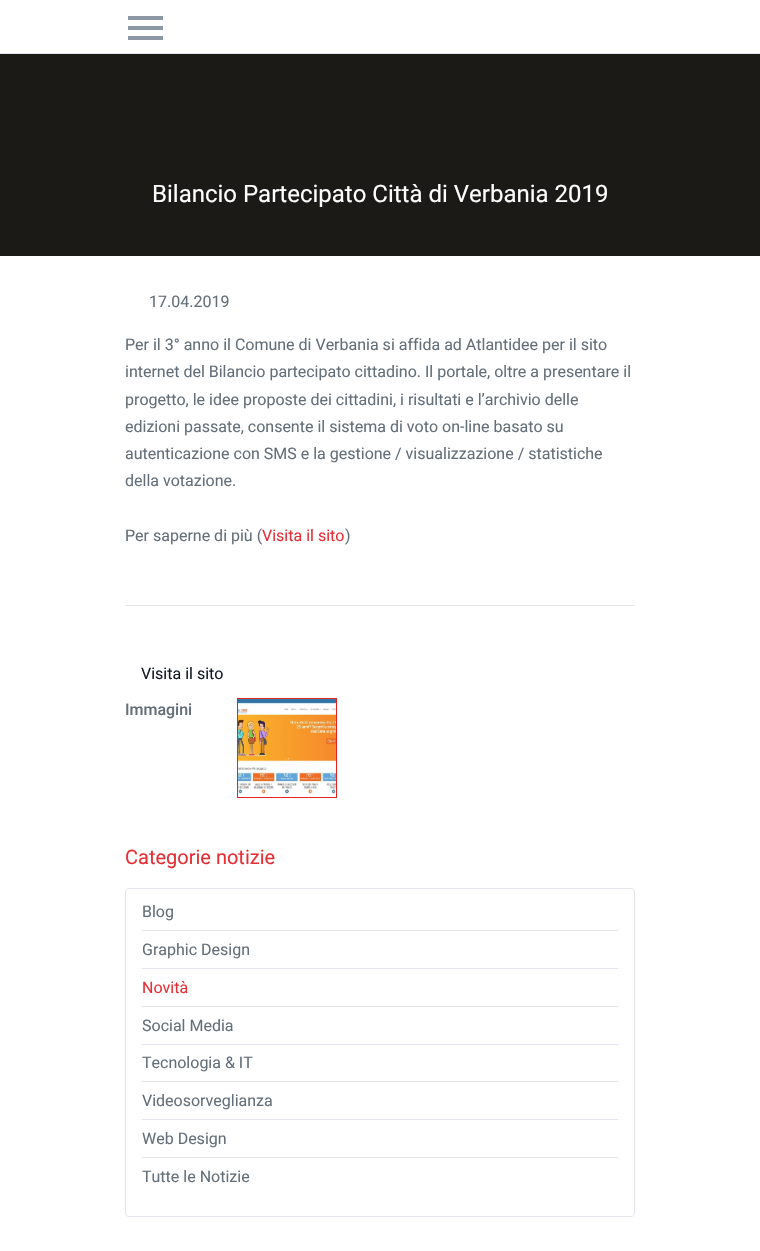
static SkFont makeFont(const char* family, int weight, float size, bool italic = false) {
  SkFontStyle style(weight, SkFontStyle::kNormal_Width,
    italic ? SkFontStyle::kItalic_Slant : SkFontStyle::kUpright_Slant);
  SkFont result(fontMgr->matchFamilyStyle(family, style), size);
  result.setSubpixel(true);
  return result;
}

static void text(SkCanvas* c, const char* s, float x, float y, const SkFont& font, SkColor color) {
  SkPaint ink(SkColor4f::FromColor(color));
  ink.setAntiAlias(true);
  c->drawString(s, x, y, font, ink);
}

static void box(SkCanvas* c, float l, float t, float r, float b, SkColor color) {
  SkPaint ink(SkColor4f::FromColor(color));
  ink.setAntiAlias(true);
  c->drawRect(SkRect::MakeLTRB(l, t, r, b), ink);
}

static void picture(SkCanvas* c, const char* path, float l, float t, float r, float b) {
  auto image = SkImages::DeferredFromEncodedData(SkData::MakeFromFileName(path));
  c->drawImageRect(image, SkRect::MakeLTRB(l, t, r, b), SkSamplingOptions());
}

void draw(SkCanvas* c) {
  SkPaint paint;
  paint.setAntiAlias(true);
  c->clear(0xffffffff);
  box(c, 0, 53, 760, 54, 0xffe3e6f0);
  box(c, 128, 16, 163, 20, 0xff8c98a4);
  box(c, 128, 26, 163, 30, 0xff8c98a4);
  box(c, 128, 36, 163, 40, 0xff8c98a4);
  box(c, 0, 54, 760, 256, 0xff1c1a17);
  SkFont face1 = makeFont("Roboto", 400, 24);
  text(c, "Bilancio Partecipato Città di Verbania 2019", 152, 202, face1, 0xffffffff);
  SkFont face2 = makeFont("Roboto", 400, 16);
  text(c, "17.04.2019", 149, 307, face2, 0xff646f79);
  text(c, "Per il 3° anno il Comune di Verbania si affida ad Atlantidee per il sito", 125, 350, face2, 0xff646f79);
  text(c, "internet del Bilancio partecipato cittadino. Il portale, oltre a presentare il", 125, 377, face2, 0xff646f79);
  text(c, "progetto, le idee proposte dei cittadini, i risultati e l’archivio delle", 125, 405, face2, 0xff646f79);
  text(c, "edizioni passate, consente il sistema di voto on-line basato su", 125, 432, face2, 0xff646f79);
  text(c, "autenticazione con SMS e la gestione / visualizzazione / statistiche", 125, 459, face2, 0xff646f79);
  text(c, "della votazione.", 125, 486, face2, 0xff646f79);
  text(c, "Per saperne di più (", 125, 541, face2, 0xff646f79);
  text(c, "Visita il sito", 262, 541, face2, 0xffe63036);
  text(c, ")", 345, 541, face2, 0xff646f79);
  box(c, 125, 605, 635, 606, 0xffe3e6f0);
  text(c, "Visita il sito", 141, 679, face2, 0xff151b26);
  SkFont face3 = makeFont("Roboto", 500, 16);
  text(c, "Immagini", 125, 715, face3, 0xff646f79);
  picture(c, "img_01.png", 238, 699, 336, 797);
  paint.setStyle(SkPaint::kStroke_Style);
  paint.setStrokeWidth(1);
  paint.setColor(0xffe4231f);
  c->drawRect(SkRect::MakeLTRB(237.5f, 698.5f, 336.5f, 797.5f), paint);
  SkFont face4 = makeFont("Roboto", 400, 20);
  text(c, "Categorie notizie", 125, 864, face4, 0xffe63036);
  paint.setColor(0xffe3e6f0);
  c->drawRoundRect(SkRect::MakeLTRB(125.5f, 888.5f, 634.5f, 1216.5f), 3.5f, 3.5f, paint);
  text(c, "Blog", 142, 917, face2, 0xff646f79);
  box(c, 142, 930, 618, 931, 0xffe3e6f0);
  text(c, "Graphic Design", 142, 955, face2, 0xff646f79);
  box(c, 142, 968, 618, 969, 0xffe3e6f0);
  text(c, "Novità", 142, 993, face2, 0xffe63036);
  box(c, 142, 1006, 618, 1007, 0xffe3e6f0);
  text(c, "Social Media", 142, 1031, face2, 0xff646f79);
  box(c, 142, 1044, 618, 1045, 0xffe3e6f0);
  text(c, "Tecnologia & IT", 142, 1068, face2, 0xff646f79);
  box(c, 142, 1081, 618, 1082, 0xffe3e6f0);
  text(c, "Videosorveglianza", 142, 1106, face2, 0xff646f79);
  box(c, 142, 1119, 618, 1120, 0xffe3e6f0);
  text(c, "Web Design", 142, 1144, face2, 0xff646f79);
  box(c, 142, 1157, 618, 1158, 0xffe3e6f0);
  text(c, "Tutte le Notizie", 142, 1182, face2, 0xff646f79);
}
